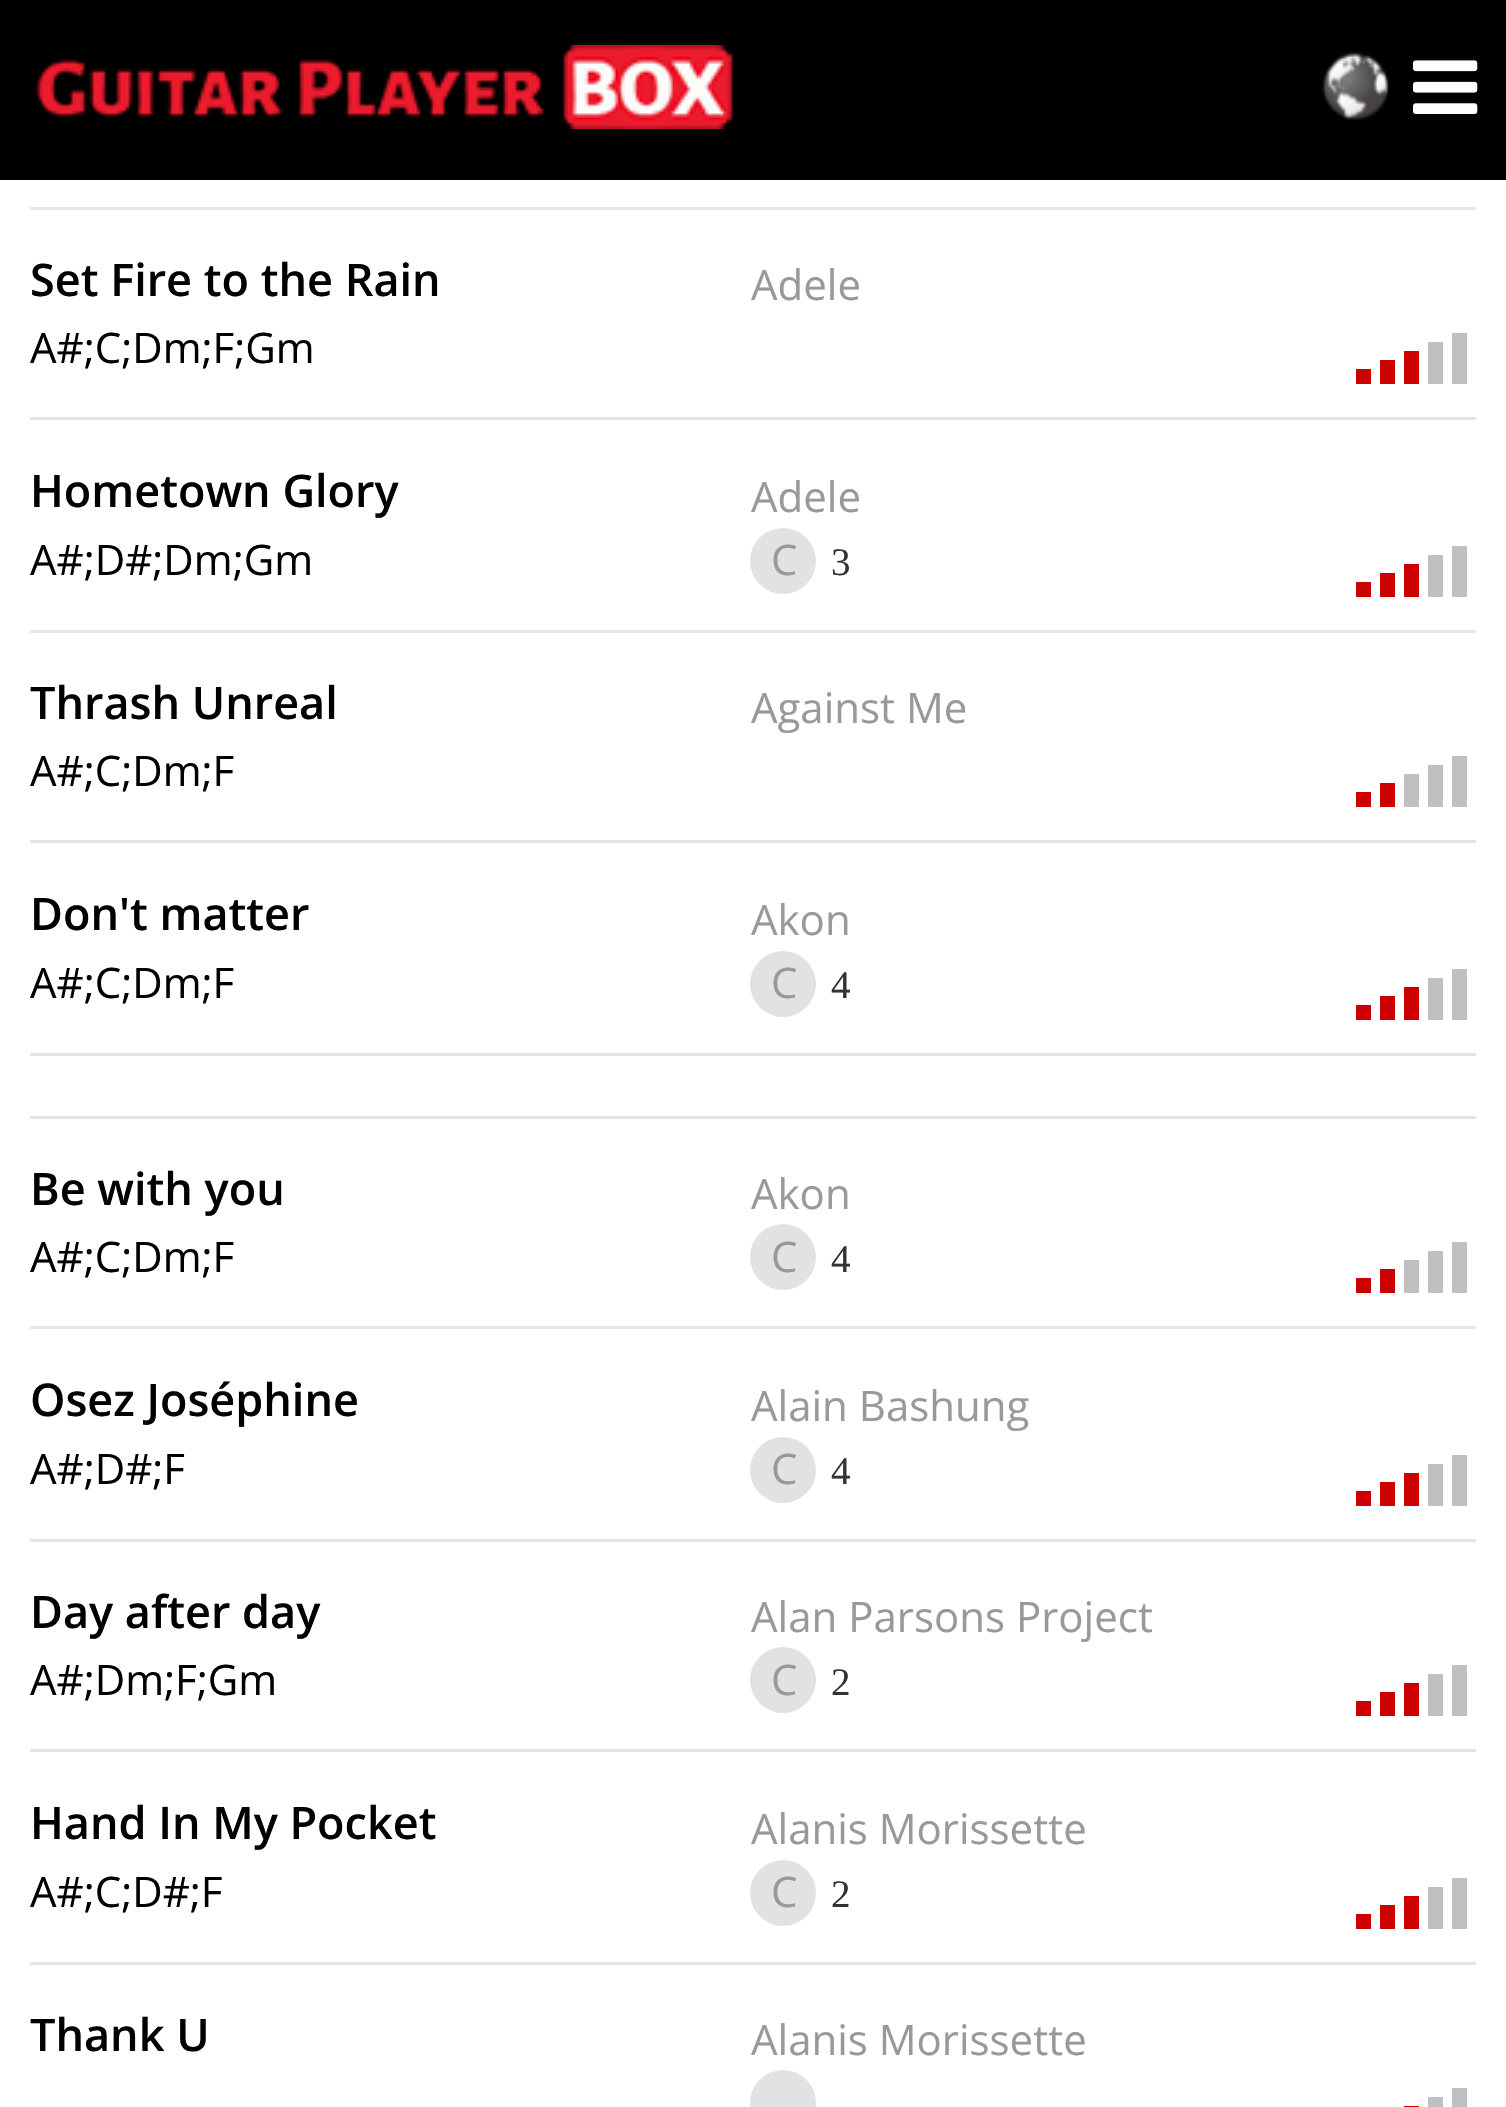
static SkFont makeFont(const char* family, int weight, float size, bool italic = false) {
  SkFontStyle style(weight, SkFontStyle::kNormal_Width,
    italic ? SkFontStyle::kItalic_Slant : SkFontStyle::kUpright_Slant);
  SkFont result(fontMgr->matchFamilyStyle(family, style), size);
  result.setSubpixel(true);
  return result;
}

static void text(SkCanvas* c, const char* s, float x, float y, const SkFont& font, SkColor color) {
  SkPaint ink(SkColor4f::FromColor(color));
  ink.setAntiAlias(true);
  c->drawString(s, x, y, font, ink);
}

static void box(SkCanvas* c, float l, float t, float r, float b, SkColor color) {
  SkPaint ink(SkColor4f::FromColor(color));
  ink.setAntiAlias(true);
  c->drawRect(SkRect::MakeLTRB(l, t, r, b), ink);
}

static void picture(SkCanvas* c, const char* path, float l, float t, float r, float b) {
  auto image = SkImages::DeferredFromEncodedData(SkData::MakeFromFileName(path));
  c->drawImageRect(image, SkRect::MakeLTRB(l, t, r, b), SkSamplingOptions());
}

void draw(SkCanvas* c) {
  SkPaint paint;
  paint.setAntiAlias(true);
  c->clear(0xffffffff);
  box(c, 0, 0, 1506, 180, 0xff000000);
  picture(c, "img_01.png", 35, 45, 733, 129);
  picture(c, "img_02.png", 1322, 51, 1390, 121);
  picture(c, "img_03.png", 1413, 60, 1478, 114);
  box(c, 30, 207, 1476, 210, 0xffe5e5e5);
  SkFont face1 = makeFont("Open Sans", 600, 45);
  text(c, "Set Fire to the Rain", 30, 296, face1, 0xff000000);
  SkFont face2 = makeFont("Open Sans", 400, 42);
  text(c, "Adele", 751, 300, face2, 0xff999999);
  text(c, "A#;C;Dm;F;Gm", 30, 363, face2, 0xff000000);
  box(c, 1356, 369, 1371, 384, 0xffcc0000);
  box(c, 1380, 360, 1395, 384, 0xffcc0000);
  box(c, 1404, 351, 1419, 384, 0xffcc0000);
  box(c, 1428, 342, 1443, 384, 0xffc0c0c0);
  box(c, 1452, 333, 1467, 384, 0xffc0c0c0);
  box(c, 30, 417, 1476, 420, 0xffe5e5e5);
  text(c, "Hometown Glory", 30, 507, face1, 0xff000000);
  text(c, "Adele", 751, 512, face2, 0xff999999);
  text(c, "A#;D#;Dm;Gm", 30, 575, face2, 0xff000000);
  paint.setColor(0xffe2e2e2);
  c->drawCircle(783, 561, 33, paint);
  text(c, "C", 771, 575, face2, 0xff999999);
  SkFont face3 = makeFont("Liberation Serif", 400, 39);
  text(c, "3", 831, 575, face3, 0xff333333);
  box(c, 1356, 582, 1371, 597, 0xffcc0000);
  box(c, 1380, 573, 1395, 597, 0xffcc0000);
  box(c, 1404, 564, 1419, 597, 0xffcc0000);
  box(c, 1428, 555, 1443, 597, 0xffc0c0c0);
  box(c, 1452, 546, 1467, 597, 0xffc0c0c0);
  box(c, 30, 630, 1476, 633, 0xffe5e5e5);
  text(c, "Thrash Unreal", 30, 719, face1, 0xff000000);
  text(c, "Against Me", 751, 723, face2, 0xff999999);
  text(c, "A#;C;Dm;F", 30, 786, face2, 0xff000000);
  box(c, 1356, 792, 1371, 807, 0xffcc0000);
  box(c, 1380, 783, 1395, 807, 0xffcc0000);
  box(c, 1404, 774, 1419, 807, 0xffc0c0c0);
  box(c, 1428, 765, 1443, 807, 0xffc0c0c0);
  box(c, 1452, 756, 1467, 807, 0xffc0c0c0);
  box(c, 30, 840, 1476, 843, 0xffe5e5e5);
  text(c, "Don't matter", 30, 930, face1, 0xff000000);
  text(c, "Akon", 751, 935, face2, 0xff999999);
  text(c, "A#;C;Dm;F", 30, 998, face2, 0xff000000);
  c->drawCircle(783, 984, 33, paint);
  text(c, "C", 771, 998, face2, 0xff999999);
  text(c, "4", 831, 998, face3, 0xff333333);
  box(c, 1356, 1005, 1371, 1020, 0xffcc0000);
  box(c, 1380, 996, 1395, 1020, 0xffcc0000);
  box(c, 1404, 987, 1419, 1020, 0xffcc0000);
  box(c, 1428, 978, 1443, 1020, 0xffc0c0c0);
  box(c, 1452, 969, 1467, 1020, 0xffc0c0c0);
  box(c, 30, 1053, 1476, 1056, 0xffe5e5e5);
  box(c, 30, 1116, 1476, 1119, 0xffe5e5e5);
  text(c, "Be with you", 30, 1205, face1, 0xff000000);
  text(c, "Akon", 751, 1209, face2, 0xff999999);
  text(c, "A#;C;Dm;F", 30, 1272, face2, 0xff000000);
  c->drawCircle(783, 1257, 33, paint);
  text(c, "C", 771, 1272, face2, 0xff999999);
  text(c, "4", 831, 1272, face3, 0xff333333);
  box(c, 1356, 1278, 1371, 1293, 0xffcc0000);
  box(c, 1380, 1269, 1395, 1293, 0xffcc0000);
  box(c, 1404, 1260, 1419, 1293, 0xffc0c0c0);
  box(c, 1428, 1251, 1443, 1293, 0xffc0c0c0);
  box(c, 1452, 1242, 1467, 1293, 0xffc0c0c0);
  box(c, 30, 1326, 1476, 1329, 0xffe5e5e5);
  text(c, "Osez Joséphine", 30, 1416, face1, 0xff000000);
  text(c, "Alain Bashung", 751, 1421, face2, 0xff999999);
  text(c, "A#;D#;F", 30, 1484, face2, 0xff000000);
  c->drawCircle(783, 1470, 33, paint);
  text(c, "C", 771, 1484, face2, 0xff999999);
  text(c, "4", 831, 1484, face3, 0xff333333);
  box(c, 1356, 1491, 1371, 1506, 0xffcc0000);
  box(c, 1380, 1482, 1395, 1506, 0xffcc0000);
  box(c, 1404, 1473, 1419, 1506, 0xffcc0000);
  box(c, 1428, 1464, 1443, 1506, 0xffc0c0c0);
  box(c, 1452, 1455, 1467, 1506, 0xffc0c0c0);
  box(c, 30, 1539, 1476, 1542, 0xffe5e5e5);
  text(c, "Day after day", 30, 1628, face1, 0xff000000);
  text(c, "Alan Parsons Project", 751, 1632, face2, 0xff999999);
  text(c, "A#;Dm;F;Gm", 30, 1695, face2, 0xff000000);
  c->drawCircle(783, 1680, 33, paint);
  text(c, "C", 771, 1695, face2, 0xff999999);
  text(c, "2", 831, 1695, face3, 0xff333333);
  box(c, 1356, 1701, 1371, 1716, 0xffcc0000);
  box(c, 1380, 1692, 1395, 1716, 0xffcc0000);
  box(c, 1404, 1683, 1419, 1716, 0xffcc0000);
  box(c, 1428, 1674, 1443, 1716, 0xffc0c0c0);
  box(c, 1452, 1665, 1467, 1716, 0xffc0c0c0);
  box(c, 30, 1749, 1476, 1752, 0xffe5e5e5);
  text(c, "Hand In My Pocket", 30, 1839, face1, 0xff000000);
  text(c, "Alanis Morissette", 751, 1844, face2, 0xff999999);
  text(c, "A#;C;D#;F", 30, 1907, face2, 0xff000000);
  c->drawCircle(783, 1893, 33, paint);
  text(c, "C", 771, 1907, face2, 0xff999999);
  text(c, "2", 831, 1907, face3, 0xff333333);
  box(c, 1356, 1914, 1371, 1929, 0xffcc0000);
  box(c, 1380, 1905, 1395, 1929, 0xffcc0000);
  box(c, 1404, 1896, 1419, 1929, 0xffcc0000);
  box(c, 1428, 1887, 1443, 1929, 0xffc0c0c0);
  box(c, 1452, 1878, 1467, 1929, 0xffc0c0c0);
  box(c, 30, 1962, 1476, 1965, 0xffe5e5e5);
  text(c, "Thank U", 30, 2051, face1, 0xff000000);
  text(c, "Alanis Morissette", 751, 2055, face2, 0xff999999);
  c->drawCircle(783, 2103, 33, paint);
  box(c, 1404, 2106, 1419, 2107, 0xffcc0000);
  box(c, 1428, 2097, 1443, 2107, 0xffc0c0c0);
  box(c, 1452, 2088, 1467, 2107, 0xffc0c0c0);
}
